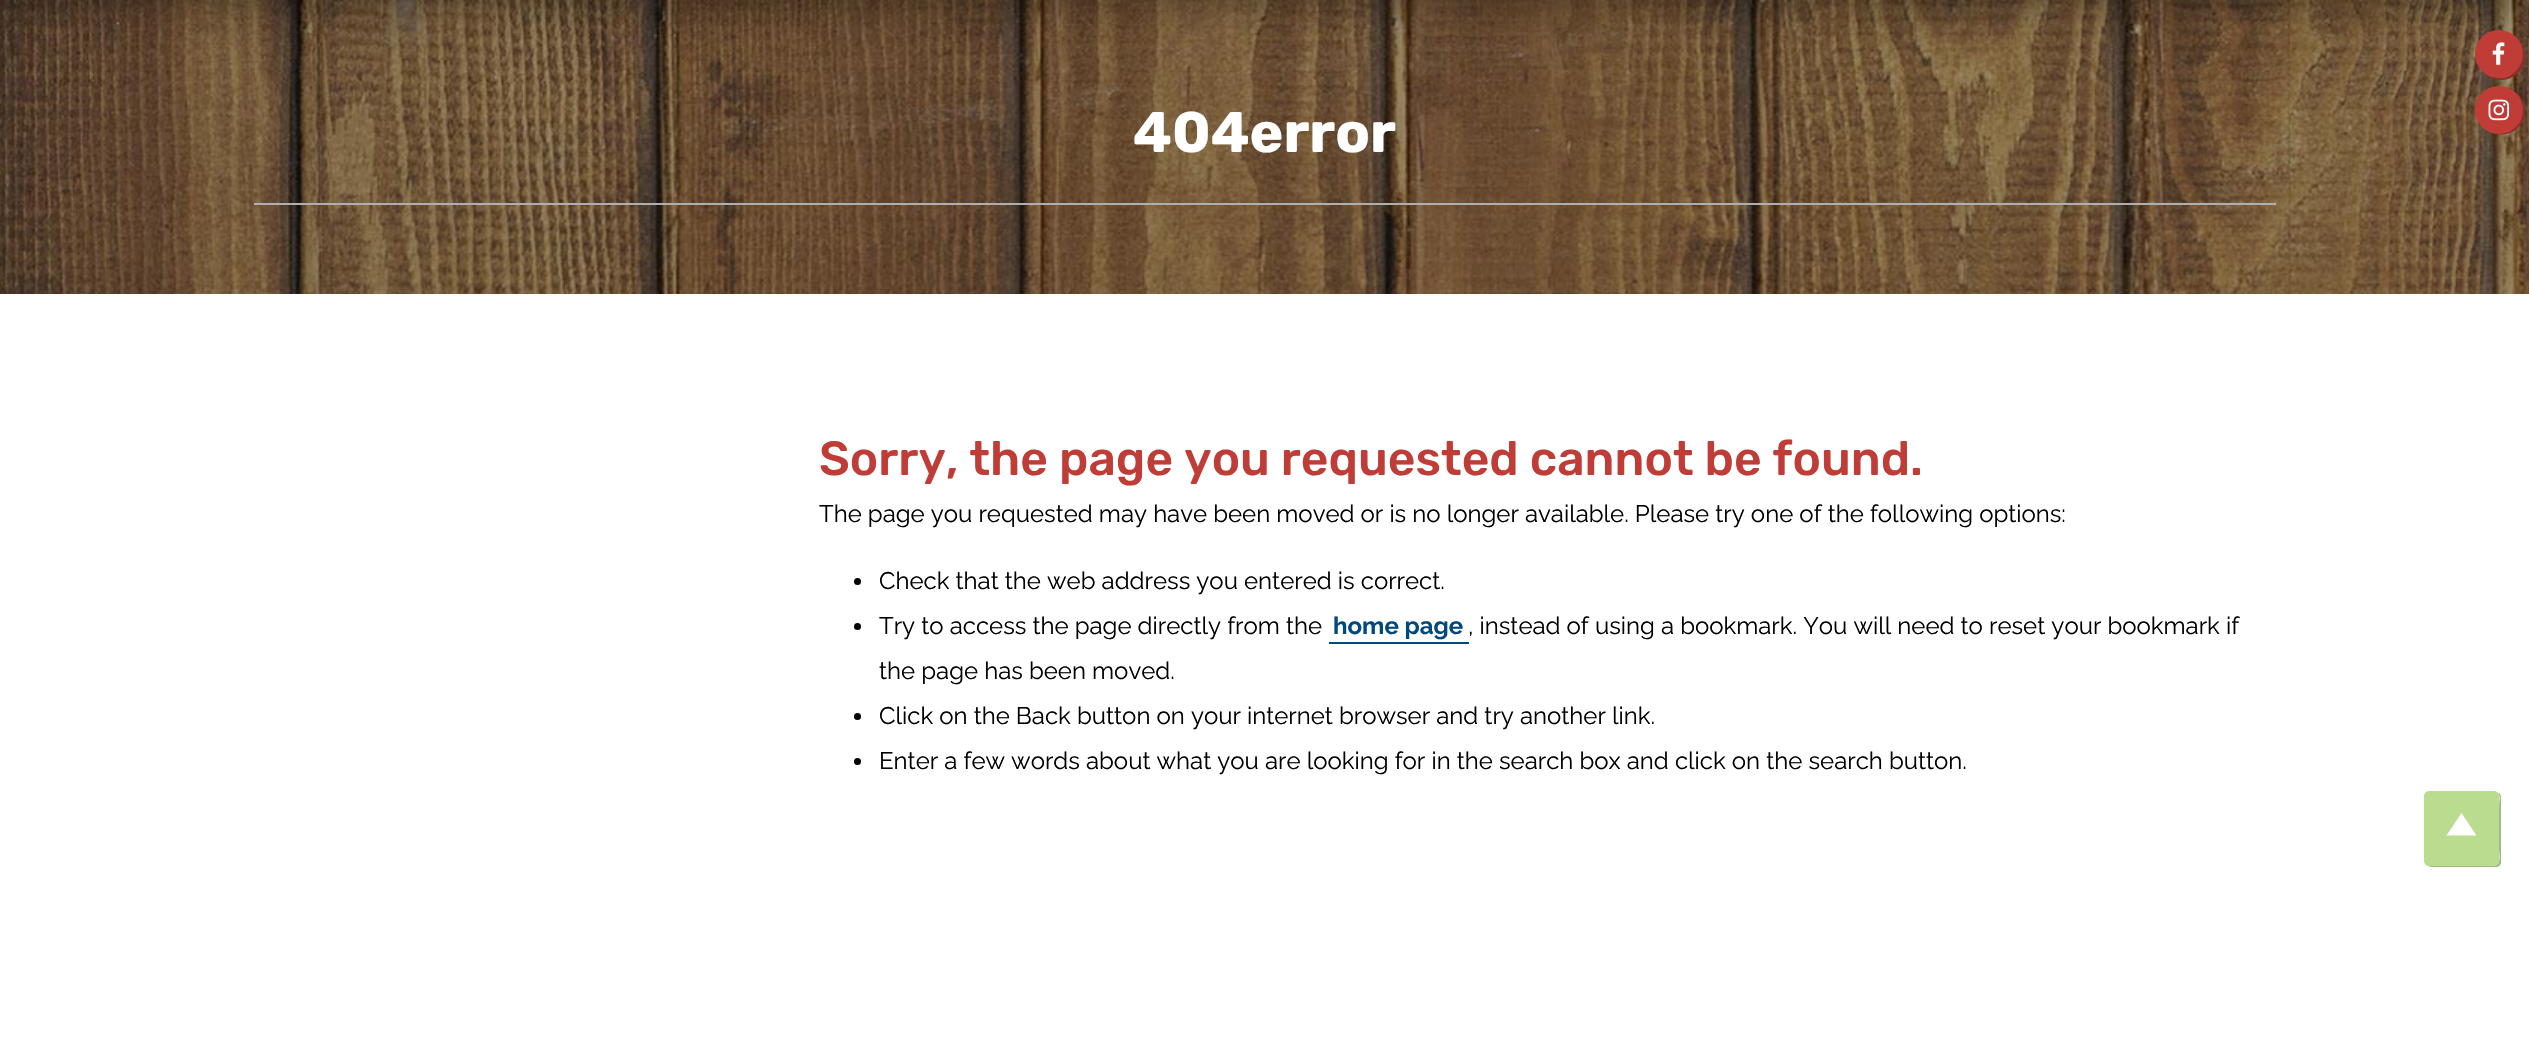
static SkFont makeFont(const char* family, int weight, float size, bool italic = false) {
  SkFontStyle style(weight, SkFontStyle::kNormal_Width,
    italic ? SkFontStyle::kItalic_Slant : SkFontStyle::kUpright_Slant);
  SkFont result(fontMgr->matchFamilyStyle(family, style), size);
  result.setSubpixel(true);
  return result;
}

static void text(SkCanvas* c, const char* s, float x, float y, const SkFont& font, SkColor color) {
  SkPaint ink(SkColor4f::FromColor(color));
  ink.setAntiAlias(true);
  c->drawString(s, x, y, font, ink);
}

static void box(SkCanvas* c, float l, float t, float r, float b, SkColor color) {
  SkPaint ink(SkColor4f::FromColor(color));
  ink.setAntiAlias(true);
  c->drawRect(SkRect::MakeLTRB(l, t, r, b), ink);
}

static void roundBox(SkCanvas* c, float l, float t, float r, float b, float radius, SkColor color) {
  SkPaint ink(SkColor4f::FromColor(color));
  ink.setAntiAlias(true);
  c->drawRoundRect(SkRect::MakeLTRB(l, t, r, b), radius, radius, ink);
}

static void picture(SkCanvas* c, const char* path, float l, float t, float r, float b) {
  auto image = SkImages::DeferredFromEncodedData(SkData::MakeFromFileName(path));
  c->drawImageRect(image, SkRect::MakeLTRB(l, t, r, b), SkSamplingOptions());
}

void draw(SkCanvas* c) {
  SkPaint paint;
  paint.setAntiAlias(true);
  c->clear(0xffffffff);
  picture(c, "img_03.png", 0, 0, 2529, 294);
  paint.setColor(0x59000000);
  paint.setMaskFilter(SkMaskFilter::MakeBlur(kNormal_SkBlurStyle, 22.5f));
  c->drawRect(SkRect::MakeLTRB(0, -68, 2529, 6), paint);
  paint.setMaskFilter(nullptr);
  paint.setColor(0xff902d29);
  c->drawPath(SkPathBuilder().moveTo(2483, 72).cubicTo(2492, 82, 2508, 83, 2518, 73).cubicTo(2528, 63, 2527, 47, 2517, 38).cubicTo(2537, 60, 2505, 92, 2483, 72).close().detach(), paint);
  paint.setColor(0xffc03c37);
  c->drawCircle(2499, 54, 24, paint);
  picture(c, "img_01.png", 2492, 42, 2505, 65);
  paint.setColor(0xff902d29);
  c->drawPath(SkPathBuilder().moveTo(2486, 129).cubicTo(2496, 138, 2513, 136, 2521, 124).cubicTo(2528, 113, 2525, 98, 2514, 91).cubicTo(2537, 110, 2510, 146, 2486, 129).close().detach(), paint);
  paint.setColor(0xffc03c37);
  c->drawCircle(2499, 110, 24, paint);
  picture(c, "img_02.png", 2488, 99, 2510, 121);
  box(c, 254, 203, 2276, 205, 0xffafafaf);
  SkFont face1 = makeFont("Rubik", 700, 57);
  text(c, "404error", 1133, 152, face1, 0xffffffff);
  SkFont face2 = makeFont("Rubik", 500, 48);
  text(c, "Sorry, the page you requested cannot be found.", 819, 475, face2, 0xffc03c37);
  SkFont face3 = makeFont("Raleway", 400, 24);
  text(c, "The page you requested may have been moved or is no longer available. Please try one of the following options:", 819, 522, face3, 0xff000000);
  paint.setColor(0xff000000);
  c->drawCircle(857.5f, 581.5f, 3.5f, paint);
  text(c, "Check that the web address you entered is correct.", 879, 589, face3, 0xff000000);
  c->drawCircle(857.5f, 626.5f, 3.5f, paint);
  text(c, "Try to access the page directly from the", 879, 634, face3, 0xff000000);
  SkFont face4 = makeFont("Raleway", 700, 24);
  text(c, "home page", 1333, 634, face4, 0xff00497d);
  box(c, 1329, 642, 1469, 644, 0xff00497d);
  text(c, ", instead of using a bookmark. You will need to reset your bookmark if", 1468, 634, face3, 0xff000000);
  text(c, "the page has been moved.", 879, 679, face3, 0xff000000);
  c->drawCircle(857.5f, 716.5f, 3.5f, paint);
  text(c, "Click on the Back button on your internet browser and try another link.", 879, 724, face3, 0xff000000);
  c->drawCircle(857.5f, 761.5f, 3.5f, paint);
  text(c, "Enter a few words about what you are looking for in the search box and click on the search button.", 879, 769, face3, 0xff000000);
  paint.setColor(0xffa1bb81);
  c->drawPath(SkPathBuilder().moveTo(2427, 865).cubicTo(2428, 866, 2430, 867, 2431, 867).lineTo(2496, 867).cubicTo(2499, 867, 2501, 865, 2501, 862).lineTo(2501, 797).cubicTo(2501, 795, 2500, 793, 2498, 793).cubicTo(2501, 796, 2499, 801, 2499, 806).lineTo(2499, 850).cubicTo(2499, 853, 2502, 865, 2494, 866).close().detach(), paint);
  roundBox(c, 2424, 791, 2499, 866, 5, 0xffb9dc8e);
  paint.setColor(0xffffffff);
  c->drawPath(SkPathBuilder().moveTo(2476.5f, 835.5f).lineTo(2446.5f, 835.5f).lineTo(2461.5f, 813).close().detach(), paint);
}
